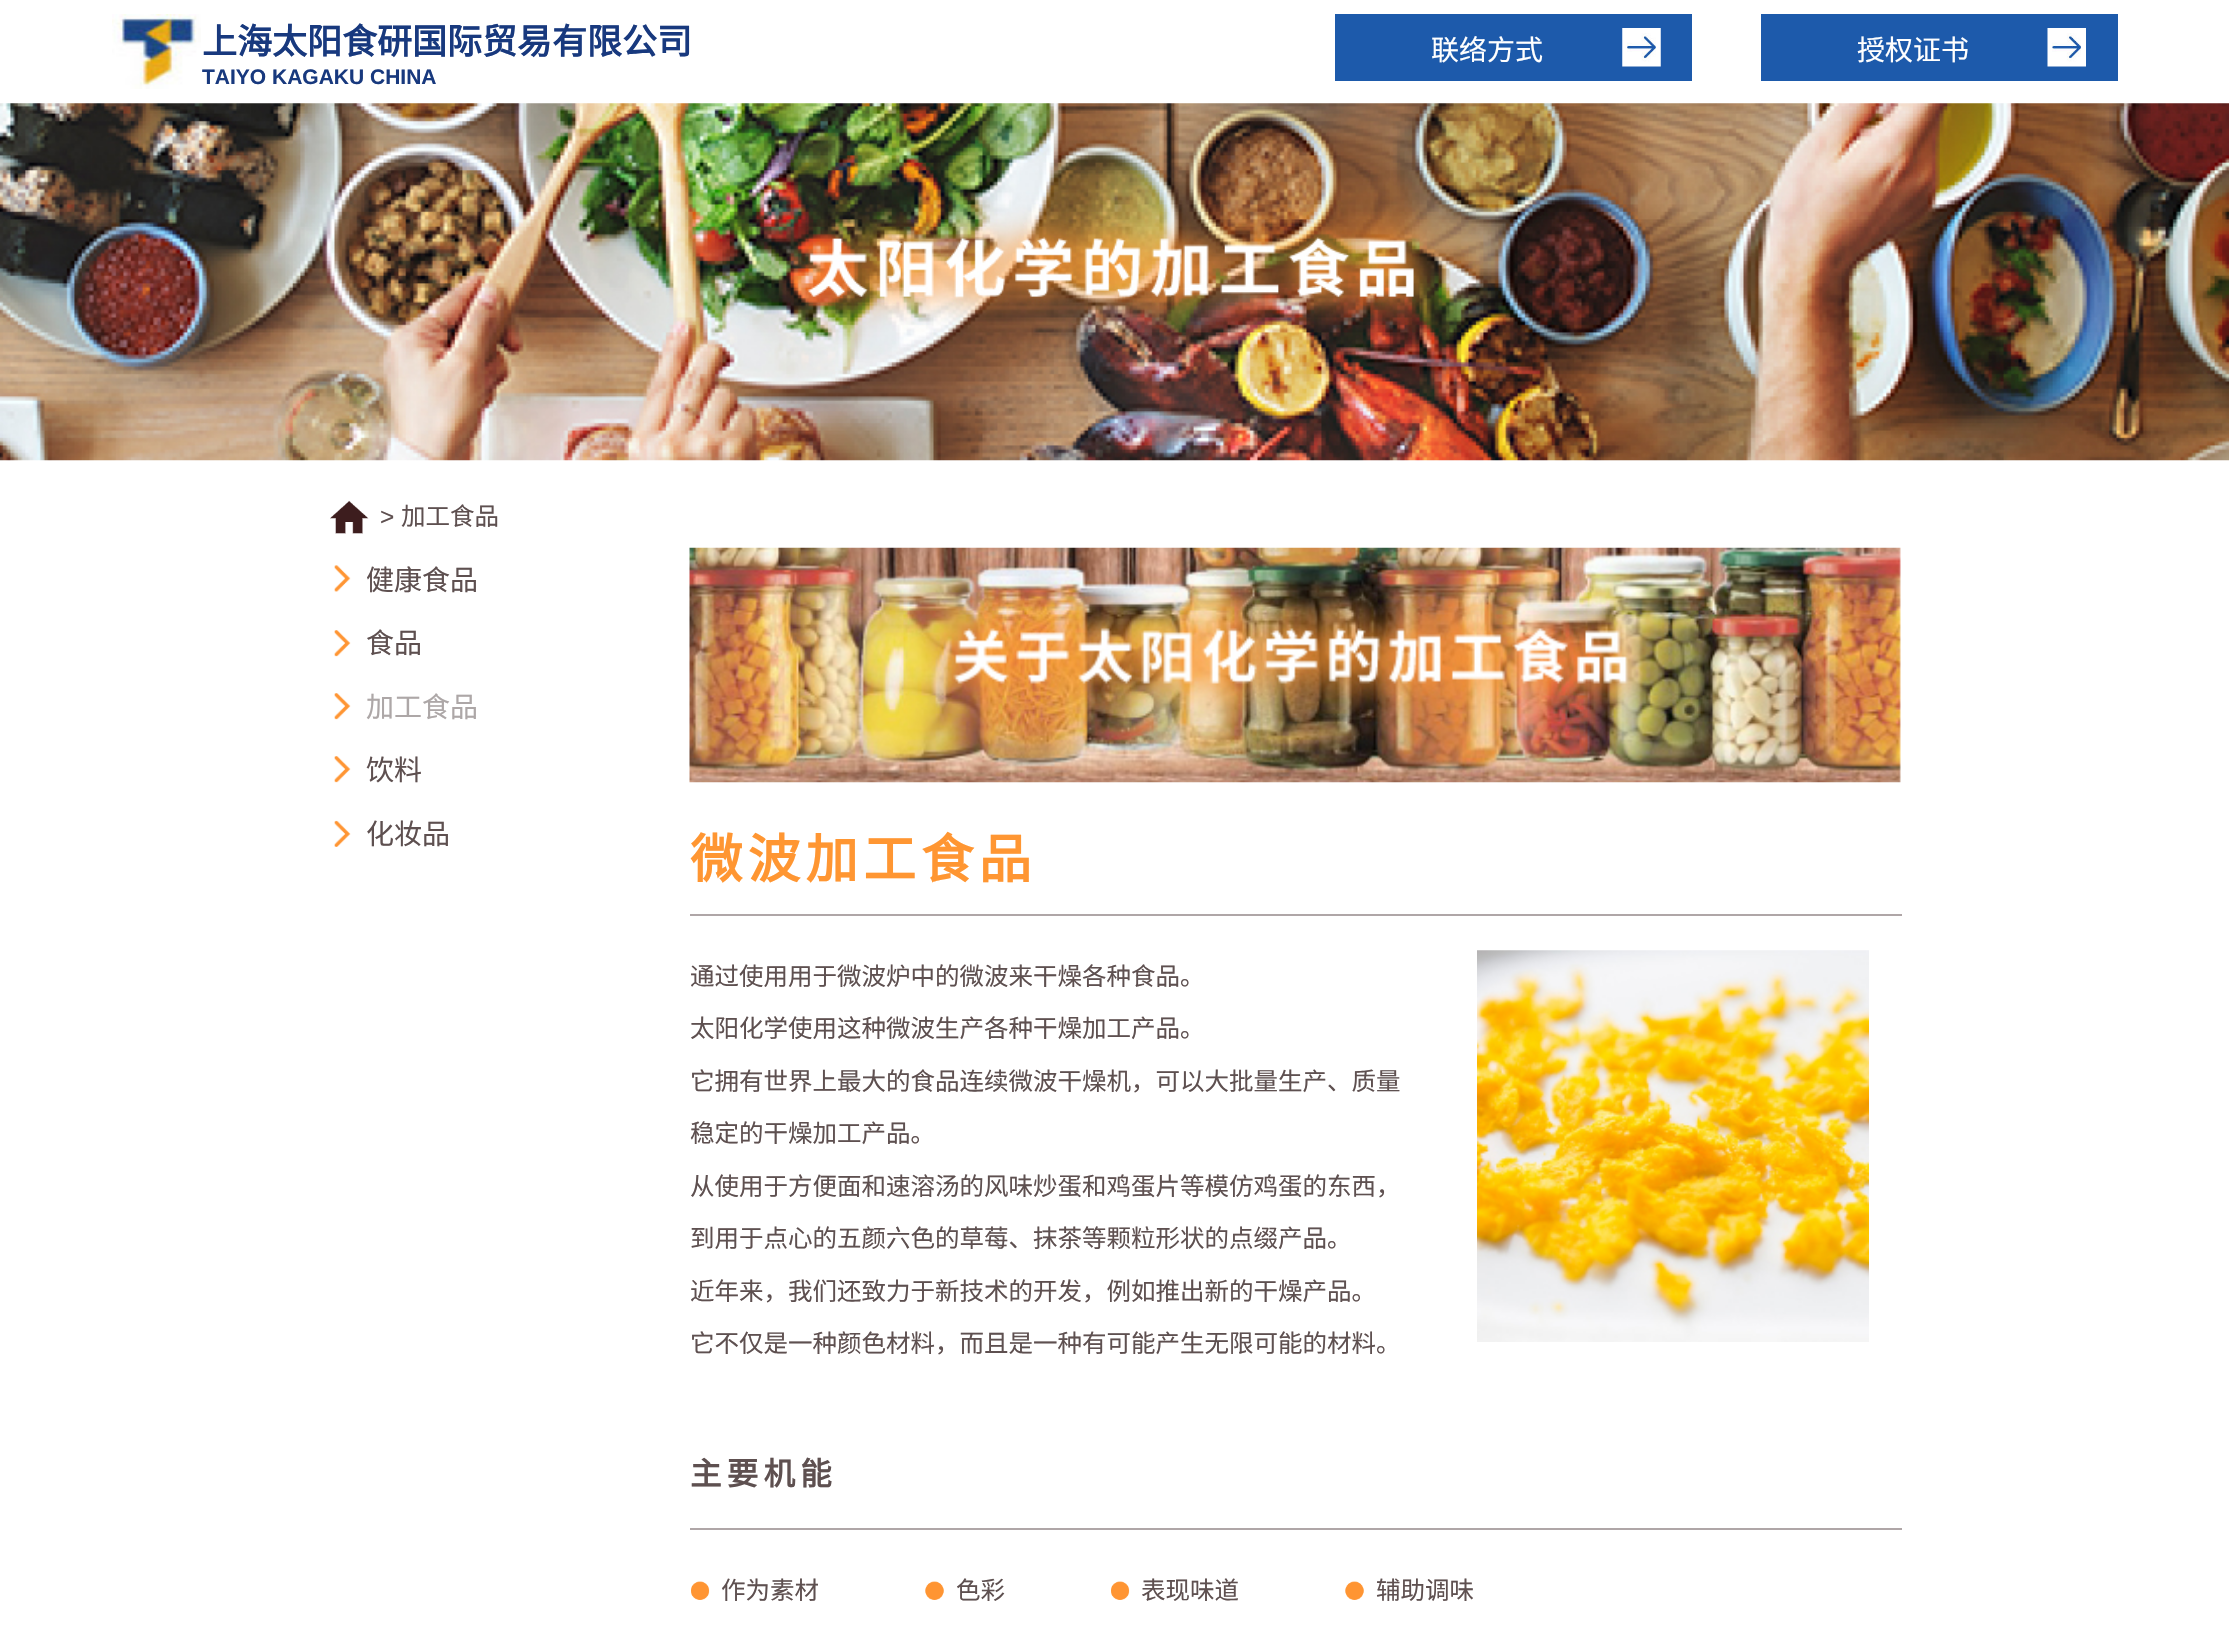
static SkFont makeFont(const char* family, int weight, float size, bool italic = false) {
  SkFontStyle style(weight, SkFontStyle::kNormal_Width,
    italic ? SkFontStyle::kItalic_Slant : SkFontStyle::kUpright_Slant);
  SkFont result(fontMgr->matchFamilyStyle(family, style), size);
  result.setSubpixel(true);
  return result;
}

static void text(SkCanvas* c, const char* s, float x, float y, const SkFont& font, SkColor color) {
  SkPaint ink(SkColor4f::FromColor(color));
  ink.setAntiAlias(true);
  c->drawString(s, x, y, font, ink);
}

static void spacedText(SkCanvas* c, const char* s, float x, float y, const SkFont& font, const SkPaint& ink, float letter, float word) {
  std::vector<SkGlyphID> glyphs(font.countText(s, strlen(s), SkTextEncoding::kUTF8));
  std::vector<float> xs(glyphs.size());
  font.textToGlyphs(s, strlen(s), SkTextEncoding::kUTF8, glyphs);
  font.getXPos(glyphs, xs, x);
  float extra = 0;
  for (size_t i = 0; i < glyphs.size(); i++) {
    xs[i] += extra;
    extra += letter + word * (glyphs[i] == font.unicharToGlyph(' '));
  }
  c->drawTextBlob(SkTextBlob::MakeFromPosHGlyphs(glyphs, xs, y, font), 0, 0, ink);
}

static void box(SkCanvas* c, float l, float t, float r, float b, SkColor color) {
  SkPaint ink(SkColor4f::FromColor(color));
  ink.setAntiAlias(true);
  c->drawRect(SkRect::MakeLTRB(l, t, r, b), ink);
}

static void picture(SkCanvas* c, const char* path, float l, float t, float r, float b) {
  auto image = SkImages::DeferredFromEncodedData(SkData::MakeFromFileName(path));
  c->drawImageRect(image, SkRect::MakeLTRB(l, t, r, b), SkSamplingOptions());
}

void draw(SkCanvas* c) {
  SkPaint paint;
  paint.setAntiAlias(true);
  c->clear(0xffffffff);
  picture(c, "img_01.png", 112, 14, 201, 89);
  SkFont face1 = makeFont("Noto Sans CJK SC", 700, 35);
  text(c, "上海太阳食研国际贸易有限公司", 202, 54, face1, 0xff18397e);
  SkFont face2 = makeFont("Liberation Sans", 700, 21);
  text(c, "TAIYO KAGAKU CHINA", 202, 84, face2, 0xff18397e);
  box(c, 1335, 14, 1692, 81, 0xff1d5aab);
  picture(c, "img_02.png", 1622, 28, 1661, 67);
  SkFont face3 = makeFont("Noto Sans CJK SC", 400, 28);
  text(c, "联络方式", 1431, 60, face3, 0xffffffff);
  box(c, 1761, 14, 2118, 81, 0xff1d5aab);
  picture(c, "img_03.png", 2047, 28, 2086, 67);
  text(c, "授权证书", 1857, 60, face3, 0xffffffff);
  picture(c, "img_04.png", 0, 103, 2229, 461);
  picture(c, "img_05.png", 330, 500, 369, 534);
  SkFont face4 = makeFont("Liberation Sans", 400, 24.5f);
  text(c, ">", 380, 525, face4, 0xff5e5050);
  SkFont face5 = makeFont("Noto Sans CJK SC", 400, 24.5f);
  text(c, "加工食品", 401, 525, face5, 0xff5e5050);
  picture(c, "img_06.png", 334, 565, 351, 592);
  text(c, "健康食品", 366, 590, face3, 0xff5e5050);
  picture(c, "img_07.png", 334, 630, 351, 657);
  text(c, "食品", 366, 653, face3, 0xff5e5050);
  picture(c, "img_07.png", 334, 693, 351, 720);
  text(c, "加工食品", 366, 717, face3, 0xffada7a7);
  picture(c, "img_07.png", 334, 756, 351, 783);
  text(c, "饮料", 366, 780, face3, 0xff5e5050);
  picture(c, "img_08.png", 334, 820, 351, 847);
  text(c, "化妆品", 366, 844, face3, 0xff5e5050);
  picture(c, "img_09.png", 689, 547, 1901, 783);
  box(c, 690, 914, 1902, 916, 0xffafa6a7);
  SkFont face6 = makeFont("Noto Sans CJK SC", 700, 52.5f);
  paint.setColor(0xffff9632);
  spacedText(c, "微波加工食品", 690, 878, face6, paint, 5.25f, 0);
  text(c, "通过使用用于微波炉中的微波来干燥各种食品。", 690, 985, face5, 0xff5e5050);
  text(c, "太阳化学使用这种微波生产各种干燥加工产品。", 690, 1037, face5, 0xff5e5050);
  text(c, "它拥有世界上最大的食品连续微波干燥机，可以大批量生产、质量", 690, 1090, face5, 0xff5e5050);
  text(c, "稳定的干燥加工产品。", 690, 1142, face5, 0xff5e5050);
  text(c, "从使用于方便面和速溶汤的风味炒蛋和鸡蛋片等模仿鸡蛋的东西，", 690, 1195, face5, 0xff5e5050);
  text(c, "到用于点心的五颜六色的草莓、抹茶等颗粒形状的点缀产品。", 690, 1247, face5, 0xff5e5050);
  text(c, "近年来，我们还致力于新技术的开发，例如推出新的干燥产品。", 690, 1300, face5, 0xff5e5050);
  text(c, "它不仅是一种颜色材料，而且是一种有可能产生无限可能的材料。", 690, 1352, face5, 0xff5e5050);
  picture(c, "img_10.png", 1477, 950, 1869, 1342);
  box(c, 690, 1528, 1902, 1530, 0xffafa6a7);
  SkFont face7 = makeFont("Noto Sans CJK SC", 700, 31.5f);
  paint.setColor(0xff5e5050);
  spacedText(c, "主要机能", 690, 1485, face7, paint, 5.25f, 0);
  picture(c, "img_11.png", 691, 1581, 710, 1600);
  text(c, "作为素材", 721, 1599, face5, 0xff5e5050);
  picture(c, "img_12.png", 925, 1581, 944, 1600);
  text(c, "色彩", 956, 1599, face5, 0xff5e5050);
  picture(c, "img_11.png", 1111, 1581, 1130, 1600);
  text(c, "表现味道", 1141, 1599, face5, 0xff5e5050);
  picture(c, "img_12.png", 1345, 1581, 1364, 1600);
  text(c, "辅助调味", 1376, 1599, face5, 0xff5e5050);
}
